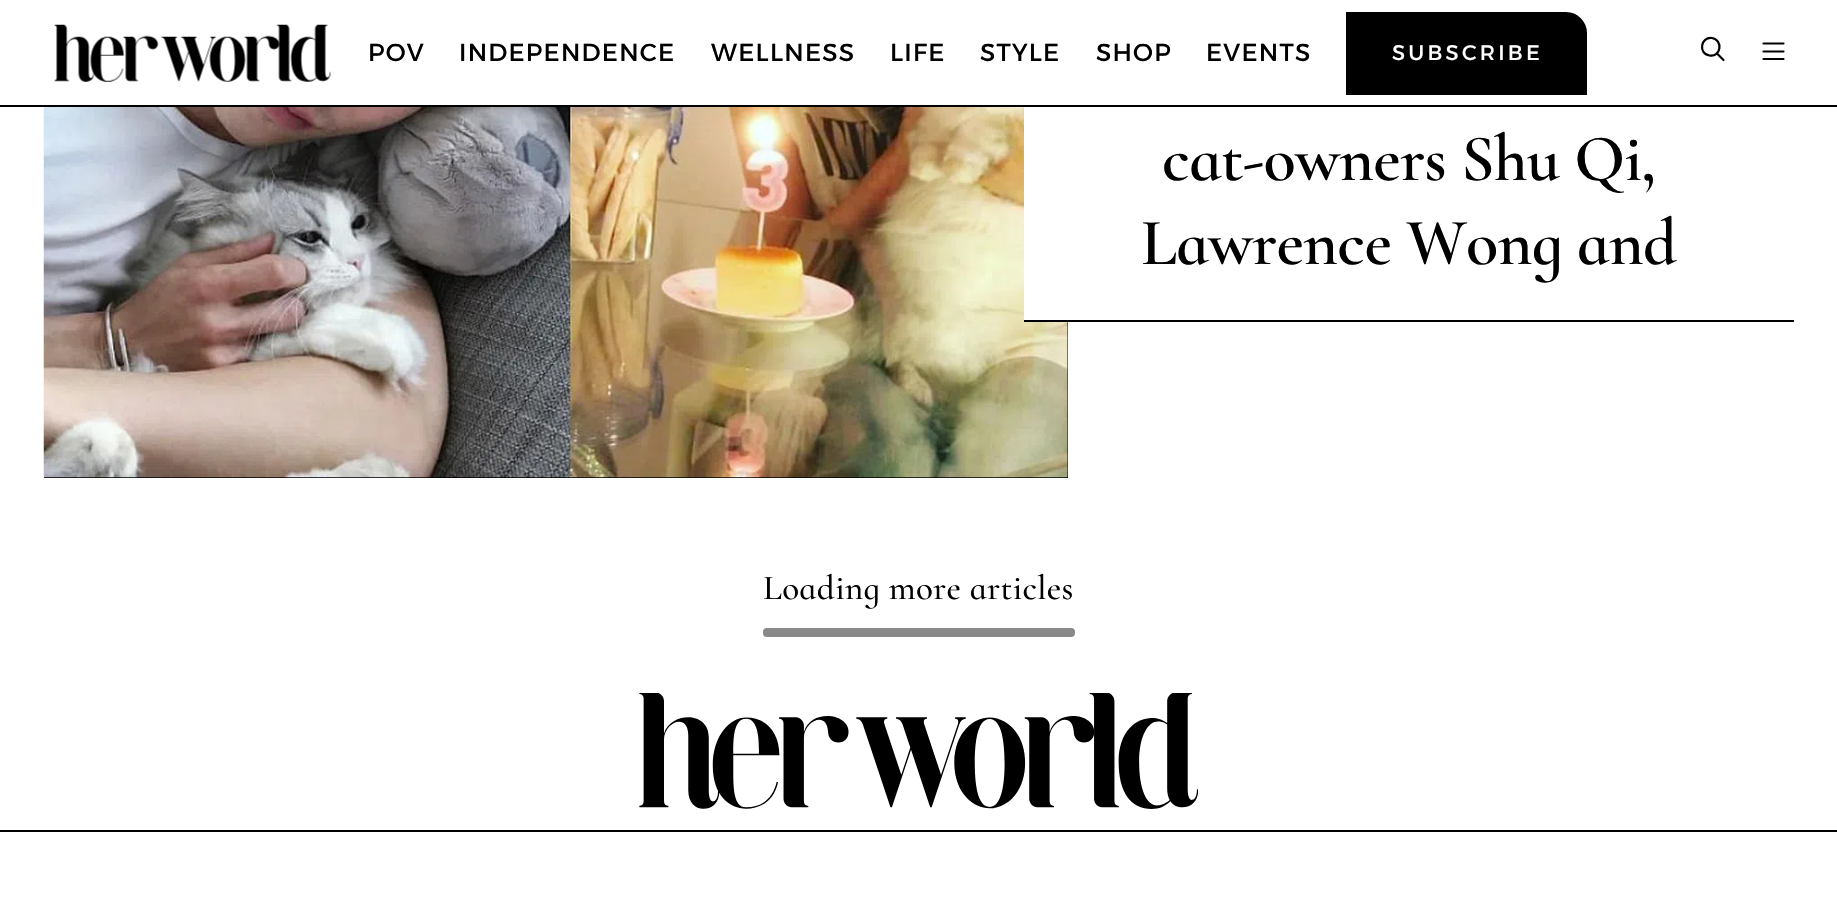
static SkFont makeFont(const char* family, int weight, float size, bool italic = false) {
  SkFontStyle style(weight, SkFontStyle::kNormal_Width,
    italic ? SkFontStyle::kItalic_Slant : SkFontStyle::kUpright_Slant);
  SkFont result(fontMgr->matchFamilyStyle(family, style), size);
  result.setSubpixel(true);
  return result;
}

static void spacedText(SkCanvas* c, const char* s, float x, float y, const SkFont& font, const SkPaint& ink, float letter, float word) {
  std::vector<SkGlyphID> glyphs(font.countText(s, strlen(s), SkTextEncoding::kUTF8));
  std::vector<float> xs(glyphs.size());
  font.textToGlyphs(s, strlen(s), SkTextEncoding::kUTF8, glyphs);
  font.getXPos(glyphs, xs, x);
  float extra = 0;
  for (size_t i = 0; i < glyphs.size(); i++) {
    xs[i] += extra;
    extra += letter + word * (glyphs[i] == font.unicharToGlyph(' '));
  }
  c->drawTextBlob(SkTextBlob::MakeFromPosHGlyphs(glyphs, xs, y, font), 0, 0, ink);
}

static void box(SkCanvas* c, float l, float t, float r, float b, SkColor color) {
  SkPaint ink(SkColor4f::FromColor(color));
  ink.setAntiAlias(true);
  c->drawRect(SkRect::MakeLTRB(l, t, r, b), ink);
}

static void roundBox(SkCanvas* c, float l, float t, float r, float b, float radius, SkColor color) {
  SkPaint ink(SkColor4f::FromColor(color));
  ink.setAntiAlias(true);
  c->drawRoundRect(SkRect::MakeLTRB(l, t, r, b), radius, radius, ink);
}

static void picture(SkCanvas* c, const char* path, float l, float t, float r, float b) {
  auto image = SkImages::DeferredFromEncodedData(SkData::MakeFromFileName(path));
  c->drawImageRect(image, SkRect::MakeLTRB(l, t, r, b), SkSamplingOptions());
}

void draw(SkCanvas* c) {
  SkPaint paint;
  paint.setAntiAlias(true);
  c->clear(0xffffffff);
  box(c, 0, 105, 1837, 107, 0xff000000);
  picture(c, "img_01.png", 54, 24, 331, 82);
  SkFont face1 = makeFont("Alexandria", 400, 24.5f);
  paint.setColor(0xff000000);
  spacedText(c, "POV", 368, 61, face1, paint, 1.25f, 0);
  spacedText(c, "INDEPENDENCE", 459, 61, face1, paint, 1.25f, 0);
  spacedText(c, "WELLNESS", 711, 61, face1, paint, 1.25f, 0);
  spacedText(c, "LIFE", 890, 61, face1, paint, 1.25f, 0);
  spacedText(c, "STYLE", 980, 61, face1, paint, 1.25f, 0);
  spacedText(c, "SHOP", 1096, 61, face1, paint, 1.25f, 0);
  spacedText(c, "EVENTS", 1206, 61, face1, paint, 1.25f, 0);
  c->drawPath(SkPathBuilder().moveTo(1347, 13).lineTo(1566, 13).cubicTo(1577, 13, 1586, 22, 1586, 33).lineTo(1586, 94).lineTo(1347, 94).close().detach(), paint);
  paint.setStyle(SkPaint::kStroke_Style);
  paint.setStrokeWidth(2);
  c->drawPath(SkPathBuilder().moveTo(1347, 13).lineTo(1566, 13).cubicTo(1577, 13, 1586, 22, 1586, 33).lineTo(1586, 94).lineTo(1347, 94).close().detach(), paint);
  SkFont face2 = makeFont("Alexandria", 400, 21);
  paint.setStyle(SkPaint::kFill_Style);
  paint.setColor(0xffffffff);
  spacedText(c, "SUBSCRIBE", 1392, 60, face2, paint, 3.25f, 0);
  paint.setStyle(SkPaint::kStroke_Style);
  paint.setStrokeWidth(2.2f);
  paint.setStrokeCap(SkPaint::kRound_Cap);
  paint.setColor(0xff000000);
  c->drawPath(SkPathBuilder().moveTo(1712, 38).cubicTo(1723.5f, 40, 1721, 57.5f, 1709.5f, 55.5f).cubicTo(1698, 54, 1700.5f, 36.5f, 1712, 38).close().moveTo(1717, 53.5f).lineTo(1723.5f, 60).detach(), paint);
  c->drawPath(SkPathBuilder().moveTo(1763.5f, 43.5f).lineTo(1783.5f, 43.5f).moveTo(1763.5f, 51.5f).lineTo(1783.5f, 51.5f).moveTo(1763.5f, 59).lineTo(1783.5f, 59).detach(), paint);
  box(c, 44, 322, 1068, 478, 0xff000000);
  picture(c, "img_02.png", 43, 107, 1068, 478);
  box(c, 1024, 107, 1068, 320, 0xffffffff);
  box(c, 1024, 320, 1794, 322, 0xff000000);
  SkFont face3 = makeFont("Cormorant Infant", 600, 66.5f);
  paint.setStyle(SkPaint::kFill_Style);
  spacedText(c, "cat-owners Shu Qi,", 1162, 180, face3, paint, -0.7f, 0);
  spacedText(c, "Lawrence Wong and", 1141, 264, face3, paint, -0.7f, 0);
  SkFont face4 = makeFont("Cormorant Infant", 500, 35);
  spacedText(c, "Loading more articles", 763, 599, face4, paint, 0.35f, 0);
  roundBox(c, 763, 628, 1075, 637, 4, 0xff898989);
  picture(c, "img_03.png", 639, 693, 1199, 809);
  box(c, 0, 830, 1837, 832, 0xff000000);
}
